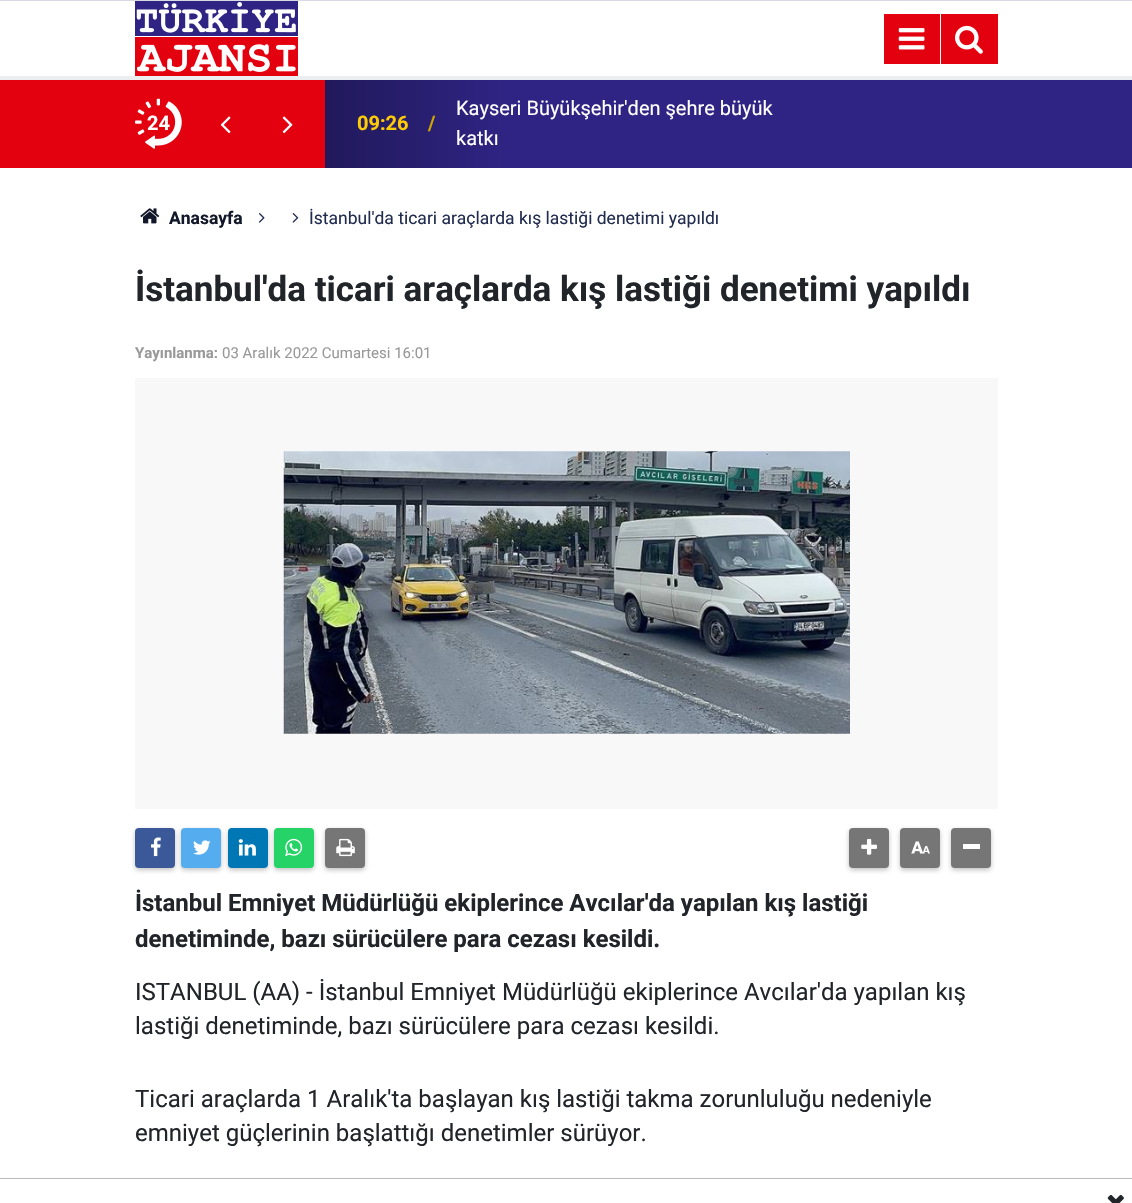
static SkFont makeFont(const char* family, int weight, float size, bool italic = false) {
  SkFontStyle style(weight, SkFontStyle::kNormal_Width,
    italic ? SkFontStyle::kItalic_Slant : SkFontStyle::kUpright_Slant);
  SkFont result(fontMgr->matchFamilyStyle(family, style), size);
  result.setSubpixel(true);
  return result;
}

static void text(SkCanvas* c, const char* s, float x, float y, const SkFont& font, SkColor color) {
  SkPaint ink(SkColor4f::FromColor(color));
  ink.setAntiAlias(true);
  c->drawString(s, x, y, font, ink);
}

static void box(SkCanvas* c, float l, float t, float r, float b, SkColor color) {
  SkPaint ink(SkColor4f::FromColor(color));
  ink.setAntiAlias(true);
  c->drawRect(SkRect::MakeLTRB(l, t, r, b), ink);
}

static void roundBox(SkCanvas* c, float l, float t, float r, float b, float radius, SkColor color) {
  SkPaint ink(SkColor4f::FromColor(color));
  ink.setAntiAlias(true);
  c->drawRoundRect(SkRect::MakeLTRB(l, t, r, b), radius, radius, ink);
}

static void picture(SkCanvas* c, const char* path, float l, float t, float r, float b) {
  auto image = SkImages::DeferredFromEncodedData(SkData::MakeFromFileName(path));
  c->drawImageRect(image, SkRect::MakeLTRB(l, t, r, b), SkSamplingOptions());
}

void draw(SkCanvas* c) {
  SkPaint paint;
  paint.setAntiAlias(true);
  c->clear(0xffffffff);
  box(c, 0, 0, 1132, 1, 0xffd7dae1);
  box(c, 0, 76, 1132, 80, 0xffecedee);
  picture(c, "img_01.png", 135, 1, 298, 76);
  box(c, 884, 14, 940, 64, 0xffe3000f);
  picture(c, "img_02.png", 898, 28, 925, 50);
  box(c, 941, 14, 998, 64, 0xffe3000f);
  picture(c, "img_03.png", 955, 25, 983, 54);
  box(c, 0, 80, 135, 168, 0xffe3000f);
  box(c, 998, 80, 1132, 168, 0xff2f2483);
  {
    const SkColor colors[] = {0xffe3000f, 0xffe3000f, 0xff21195b, 0xff2f2483};
    const float stops[] = {0.07f, 0.22f, 0.22f, 0.43f};
    const SkPoint ends[] = {{135, 124}, {998, 124}};
    paint.setShader(SkGradientShader::MakeLinear(ends, colors, stops, 4, SkTileMode::kClamp));
    paint.setAlpha(255);
  }
  c->drawRect(SkRect::MakeLTRB(135, 80, 998, 168), paint);
  picture(c, "img_04.png", 135, 98, 182, 149);
  SkFont face1 = makeFont("Roboto", 700, 20);
  text(c, "24", 147, 130, face1, 0xffffffff);
  picture(c, "img_05.png", 220, 116, 231, 134);
  picture(c, "img_06.png", 282, 116, 293, 134);
  text(c, "09:26", 357, 130, face1, 0xffffcb05);
  text(c, "/", 428, 130, face1, 0xffd1a600);
  SkFont face2 = makeFont("Roboto", 400, 20);
  text(c, "Kayseri Büyükşehir'den şehre büyük", 456, 115, face2, 0xffffffff);
  text(c, "katkı", 456, 145, face2, 0xffffffff);
  picture(c, "img_07.png", 140, 208, 160, 224);
  SkFont face3 = makeFont("Roboto", 700, 17.5f);
  text(c, "Anasayfa", 169, 224, face3, 0xff12182a);
  picture(c, "img_08.png", 258, 213, 265, 223);
  picture(c, "img_09.png", 292, 213, 299, 223);
  SkFont face4 = makeFont("Roboto", 400, 17.5f);
  text(c, "İstanbul'da ticari araçlarda kış lastiği denetimi yapıldı", 309, 224, face4, 0xff212c4e);
  SkFont face5 = makeFont("Roboto", 700, 35);
  text(c, "İstanbul'da ticari araçlarda kış lastiği denetimi yapıldı", 135, 301, face5, 0xff212529);
  SkFont face6 = makeFont("Roboto", 700, 15);
  text(c, "Yayınlanma:", 135, 358, face6, 0xff999999);
  SkFont face7 = makeFont("Roboto", 400, 15);
  text(c, "03 Aralık 2022 Cumartesi 16:01", 222, 358, face7, 0xff999999);
  box(c, 135, 378, 998, 809, 0xfff8f8f8);
  picture(c, "img_10.png", 283, 451, 850, 734);
  paint.setShader(nullptr);
  paint.setColor(0x4d323232);
  paint.setMaskFilter(SkMaskFilter::MakeBlur(kNormal_SkBlurStyle, 2.5f));
  c->drawRoundRect(SkRect::MakeLTRB(135, 830, 175, 870), 4, 4, paint);
  paint.setMaskFilter(nullptr);
  roundBox(c, 135, 828, 175, 868, 4, 0xff3b5999);
  picture(c, "img_11.png", 151, 837, 161, 857);
  paint.setMaskFilter(SkMaskFilter::MakeBlur(kNormal_SkBlurStyle, 2.5f));
  c->drawRoundRect(SkRect::MakeLTRB(181, 830, 221, 870), 4, 4, paint);
  paint.setMaskFilter(nullptr);
  roundBox(c, 181, 828, 221, 868, 4, 0xff55acee);
  picture(c, "img_12.png", 193, 840, 211, 855);
  paint.setMaskFilter(SkMaskFilter::MakeBlur(kNormal_SkBlurStyle, 2.5f));
  c->drawRoundRect(SkRect::MakeLTRB(228, 830, 268, 870), 4, 4, paint);
  paint.setMaskFilter(nullptr);
  roundBox(c, 228, 828, 268, 868, 4, 0xff0077b5);
  picture(c, "img_13.png", 238, 839, 256, 856);
  paint.setMaskFilter(SkMaskFilter::MakeBlur(kNormal_SkBlurStyle, 2.5f));
  c->drawRoundRect(SkRect::MakeLTRB(274, 830, 314, 870), 4, 4, paint);
  paint.setMaskFilter(nullptr);
  roundBox(c, 274, 828, 314, 868, 4, 0xff25d366);
  picture(c, "img_14.png", 285, 838, 303, 857);
  paint.setMaskFilter(SkMaskFilter::MakeBlur(kNormal_SkBlurStyle, 2.5f));
  c->drawRoundRect(SkRect::MakeLTRB(325, 830, 365, 870), 4, 4, paint);
  paint.setMaskFilter(nullptr);
  roundBox(c, 325, 828, 365, 868, 4, 0xff767676);
  picture(c, "img_15.png", 336, 838, 355, 857);
  paint.setMaskFilter(SkMaskFilter::MakeBlur(kNormal_SkBlurStyle, 2.5f));
  c->drawRoundRect(SkRect::MakeLTRB(849, 830, 889, 870), 4, 4, paint);
  paint.setMaskFilter(nullptr);
  roundBox(c, 849, 828, 889, 868, 4, 0xff767676);
  picture(c, "img_16.png", 861, 838, 877, 855);
  paint.setMaskFilter(SkMaskFilter::MakeBlur(kNormal_SkBlurStyle, 2.5f));
  c->drawRoundRect(SkRect::MakeLTRB(900, 830, 940, 870), 4, 4, paint);
  paint.setMaskFilter(nullptr);
  roundBox(c, 900, 828, 940, 868, 4, 0xff767676);
  picture(c, "img_17.png", 911, 841, 930, 854);
  paint.setMaskFilter(SkMaskFilter::MakeBlur(kNormal_SkBlurStyle, 2.5f));
  c->drawRoundRect(SkRect::MakeLTRB(951, 830, 991, 870), 4, 4, paint);
  paint.setMaskFilter(nullptr);
  roundBox(c, 951, 828, 991, 868, 4, 0xff767676);
  box(c, 963, 844, 980, 849, 0xffffffff);
  SkFont face8 = makeFont("Roboto", 700, 24);
  text(c, "İstanbul Emniyet Müdürlüğü ekiplerince Avcılar'da yapılan kış lastiği", 135, 911, face8, 0xff212529);
  text(c, "denetiminde, bazı sürücülere para cezası kesildi.", 135, 947, face8, 0xff212529);
  SkFont face9 = makeFont("Roboto", 400, 24);
  text(c, "ISTANBUL (AA) - İstanbul Emniyet Müdürlüğü ekiplerince Avcılar'da yapılan kış", 135, 1000, face9, 0xff212529);
  text(c, "lastiği denetiminde, bazı sürücülere para cezası kesildi.", 135, 1034, face9, 0xff212529);
  text(c, "Ticari araçlarda 1 Aralık'ta başlayan kış lastiği takma zorunluluğu nedeniyle", 135, 1107, face9, 0xff212529);
  text(c, "emniyet güçlerinin başlattığı denetimler sürüyor.", 135, 1141, face9, 0xff212529);
  box(c, 0, 1178, 1132, 1179, 0xffb9b9b9);
  picture(c, "img_18.png", 1107, 1194, 1124, 1203);
}
